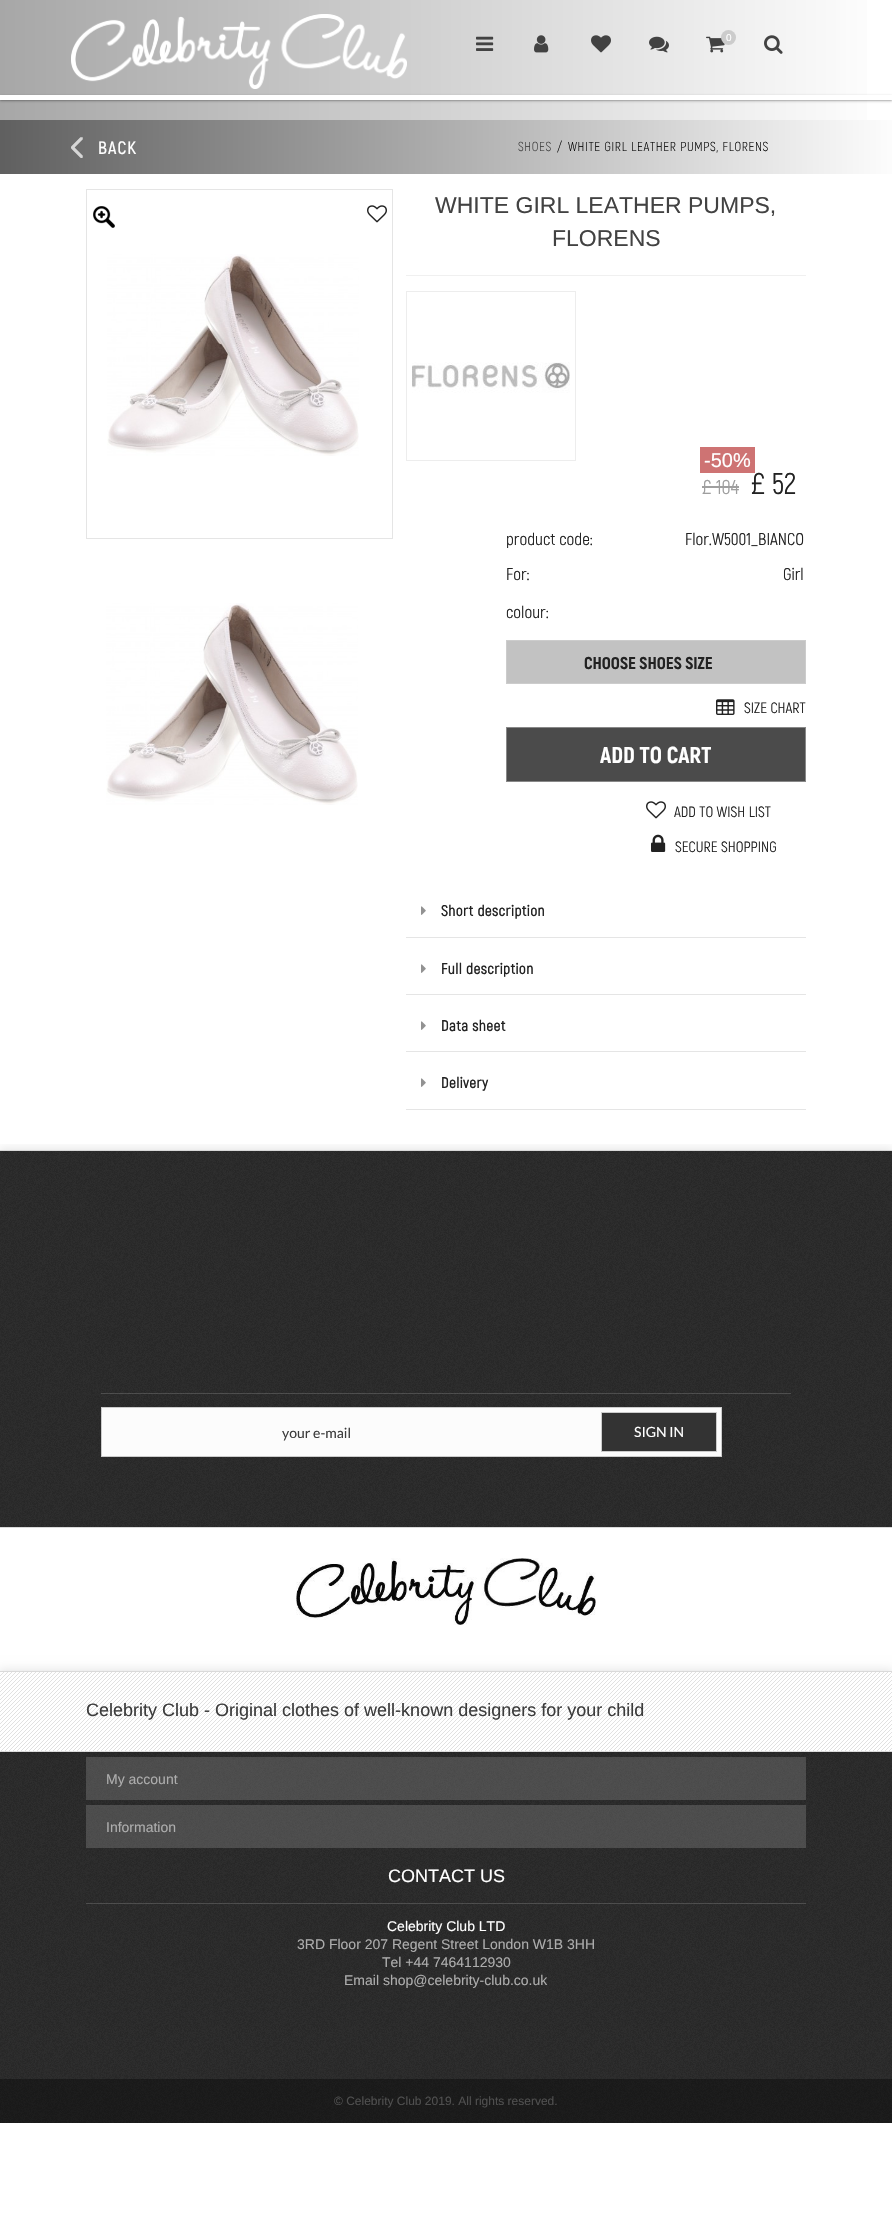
static SkFont makeFont(const char* family, int weight, float size, bool italic = false) {
  SkFontStyle style(weight, SkFontStyle::kNormal_Width,
    italic ? SkFontStyle::kItalic_Slant : SkFontStyle::kUpright_Slant);
  SkFont result(fontMgr->matchFamilyStyle(family, style), size);
  result.setSubpixel(true);
  return result;
}

static void text(SkCanvas* c, const char* s, float x, float y, const SkFont& font, SkColor color) {
  SkPaint ink(SkColor4f::FromColor(color));
  ink.setAntiAlias(true);
  c->drawString(s, x, y, font, ink);
}

static void spacedText(SkCanvas* c, const char* s, float x, float y, const SkFont& font, const SkPaint& ink, float letter, float word) {
  std::vector<SkGlyphID> glyphs(font.countText(s, strlen(s), SkTextEncoding::kUTF8));
  std::vector<float> xs(glyphs.size());
  font.textToGlyphs(s, strlen(s), SkTextEncoding::kUTF8, glyphs);
  font.getXPos(glyphs, xs, x);
  float extra = 0;
  for (size_t i = 0; i < glyphs.size(); i++) {
    xs[i] += extra;
    extra += letter + word * (glyphs[i] == font.unicharToGlyph(' '));
  }
  c->drawTextBlob(SkTextBlob::MakeFromPosHGlyphs(glyphs, xs, y, font), 0, 0, ink);
}

static void box(SkCanvas* c, float l, float t, float r, float b, SkColor color) {
  SkPaint ink(SkColor4f::FromColor(color));
  ink.setAntiAlias(true);
  c->drawRect(SkRect::MakeLTRB(l, t, r, b), ink);
}

static void picture(SkCanvas* c, const char* path, float l, float t, float r, float b) {
  auto image = SkImages::DeferredFromEncodedData(SkData::MakeFromFileName(path));
  c->drawImageRect(image, SkRect::MakeLTRB(l, t, r, b), SkSamplingOptions());
}

void draw(SkCanvas* c) {
  SkPaint paint;
  paint.setAntiAlias(true);
  c->clear(0xffffffff);
  {
    const SkColor colors[] = {0xffa7a7a7, 0xffffffff};
    const float stops[] = {0, 1};
    const SkPoint ends[] = {{0, 60}, {892, 60}};
    paint.setShader(SkGradientShader::MakeLinear(ends, colors, stops, 2, SkTileMode::kClamp));
    paint.setAlpha(255);
  }
  c->drawRect(SkRect::MakeLTRB(0, 0, 867, 120), paint);
  picture(c, "img_01.png", 71, 14, 407, 89);
  picture(c, "img_02.png", 476, 36, 494, 51);
  picture(c, "img_03.png", 534, 35, 549, 53);
  picture(c, "img_04.png", 591, 35, 611, 53);
  picture(c, "img_05.png", 649, 36, 669, 53);
  picture(c, "img_06.png", 706, 36, 725, 53);
  paint.setShader(nullptr);
  paint.setColor(0xffcccccc);
  c->drawCircle(728.5f, 37.5f, 7.5f, paint);
  SkFont face1 = makeFont("Liberation Sans", 400, 10);
  text(c, "0", 726, 41, face1, 0xffffffff);
  picture(c, "img_07.png", 764, 35, 783, 54);
  paint.setColor(0x3d000000);
  paint.setMaskFilter(SkMaskFilter::MakeBlur(kNormal_SkBlurStyle, 1));
  c->drawRect(SkRect::MakeLTRB(0, 96, 892, 101), paint);
  paint.setMaskFilter(nullptr);
  paint.setColor(0x1f000000);
  paint.setMaskFilter(SkMaskFilter::MakeBlur(kNormal_SkBlurStyle, 1.5f));
  c->drawRect(SkRect::MakeLTRB(0, 96, 892, 101), paint);
  paint.setMaskFilter(nullptr);
  box(c, 0, 95, 892, 100, 0xffffffff);
  {
    const SkColor colors[] = {0xff5d5d5d, 0xffffffff};
    const float stops[] = {0, 1};
    const SkPoint ends[] = {{-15, 147}, {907, 147}};
    paint.setShader(SkGradientShader::MakeLinear(ends, colors, stops, 2, SkTileMode::kClamp));
    paint.setAlpha(255);
  }
  c->drawRect(SkRect::MakeLTRB(0, 120, 892, 174), paint);
  picture(c, "img_08.png", 71, 137, 83, 158);
  SkFont face2 = makeFont("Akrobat", 600, 18);
  paint.setShader(nullptr);
  paint.setColor(0xffffffff);
  spacedText(c, "BACK", 98, 154, face2, paint, 1, 0);
  SkFont face3 = makeFont("Akrobat", 300, 13);
  paint.setColor(0xff3c3c3c);
  spacedText(c, "SHOES", 518, 151, face3, paint, 0.65f, 0);
  paint.setColor(0xff000000);
  spacedText(c, "/", 557, 151, face3, paint, 0.65f, 0);
  spacedText(c, "WHITE GIRL LEATHER PUMPS, FLORENS", 568, 151, face3, paint, 0.65f, 0);
  paint.setStyle(SkPaint::kStroke_Style);
  paint.setStrokeWidth(1);
  paint.setColor(0xffe5e5e5);
  c->drawRect(SkRect::MakeLTRB(86.5f, 189.5f, 392.5f, 538.5f), paint);
  picture(c, "img_09.png", 93, 206, 115, 228);
  picture(c, "img_10.png", 107, 254, 359, 456);
  picture(c, "img_11.png", 106, 603, 358, 805);
  picture(c, "img_12.png", 367, 205, 387, 223);
  box(c, 406, 275, 806, 276, 0xfff0f0f0);
  SkFont face4 = makeFont("Liberation Sans", 400, 23);
  text(c, "WHITE GIRL LEATHER PUMPS,", 435, 213, face4, 0xff424242);
  text(c, "FLORENS", 552, 246, face4, 0xff424242);
  paint.setColor(0xffededed);
  c->drawRect(SkRect::MakeLTRB(406.5f, 291.5f, 575.5f, 460.5f), paint);
  picture(c, "img_13.png", 412, 362, 570, 393);
  SkFont face5 = makeFont("Akrobat", 400, 30);
  text(c, "£ 52", 751, 494, face5, 0xff222222);
  box(c, 700, 447, 755, 473, 0xffce7373);
  SkFont face6 = makeFont("Liberation Sans", 400, 20);
  text(c, "-50%", 704, 467, face6, 0xffffffff);
  SkFont face7 = makeFont("Akrobat", 400, 20);
  text(c, "£ 104", 702, 494, face7, 0xff9f9f9f);
  box(c, 702, 486, 739, 488, 0xff9f9f9f);
  SkFont face8 = makeFont("Akrobat", 400, 17);
  text(c, "product code:", 506, 545, face8, 0xff222222);
  text(c, "Flor.W5001_BIANCO", 685, 545, face8, 0xff222222);
  text(c, "For:", 506, 580, face8, 0xff222222);
  text(c, "Girl", 783, 580, face8, 0xff222222);
  text(c, "colour:", 506, 618, face8, 0xff222222);
  paint.setStyle(SkPaint::kFill_Style);
  paint.setColor(0xffc2c2c2);
  c->drawRect(SkRect::MakeLTRB(506.5f, 640.5f, 805.5f, 683.5f), paint);
  paint.setStyle(SkPaint::kStroke_Style);
  paint.setColor(0xffcccccc);
  c->drawRect(SkRect::MakeLTRB(506.5f, 640.5f, 805.5f, 683.5f), paint);
  SkFont face9 = makeFont("Akrobat", 800, 17);
  text(c, "CHOOSE SHOES SIZE", 584, 669, face9, 0xff222222);
  picture(c, "img_14.png", 716, 699, 735, 715);
  SkFont face10 = makeFont("Akrobat", 400, 15);
  text(c, "SIZE CHART", 744, 713, face10, 0xff222222);
  paint.setStyle(SkPaint::kFill_Style);
  paint.setColor(0xff4b4b4b);
  c->drawRect(SkRect::MakeLTRB(506.5f, 727.5f, 805.5f, 781.5f), paint);
  paint.setStyle(SkPaint::kStroke_Style);
  paint.setColor(0xff888888);
  c->drawRect(SkRect::MakeLTRB(506.5f, 727.5f, 805.5f, 781.5f), paint);
  SkFont face11 = makeFont("Akrobat", 800, 23);
  text(c, "ADD TO CART", 600, 763, face11, 0xffffffff);
  picture(c, "img_12.png", 646, 801, 666, 819);
  text(c, "ADD TO WISH LIST", 674, 817, face10, 0xff222222);
  picture(c, "img_15.png", 651, 834, 666, 852);
  text(c, "SECURE SHOPPING", 675, 852, face10, 0xff222222);
  box(c, 406, 937, 806, 938, 0xffe5e5e5);
  picture(c, "img_16.png", 421, 906, 426, 915);
  SkFont face12 = makeFont("Akrobat", 700, 15);
  paint.setStyle(SkPaint::kFill_Style);
  paint.setColor(0xff222222);
  spacedText(c, "Short description", 441, 916, face12, paint, 0.5f, 0);
  box(c, 406, 994, 806, 995, 0xffe5e5e5);
  picture(c, "img_16.png", 421, 964, 426, 973);
  spacedText(c, "Full description", 441, 974, face12, paint, 0.5f, 0);
  box(c, 406, 1051, 806, 1052, 0xffe5e5e5);
  picture(c, "img_16.png", 421, 1021, 426, 1030);
  spacedText(c, "Data sheet", 441, 1031, face12, paint, 0.5f, 0);
  box(c, 406, 1109, 806, 1110, 0xffe5e5e5);
  picture(c, "img_16.png", 421, 1078, 426, 1087);
  spacedText(c, "Delivery", 441, 1088, face12, paint, 0.5f, 0);
  picture(c, "img_17.png", 0, 1151, 892, 2123);
  c->save();
  c->clipRect(SkRect::MakeLTRB(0, 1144, 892, 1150));
  paint.setColor(0x1c000000);
  paint.setMaskFilter(SkMaskFilter::MakeBlur(kNormal_SkBlurStyle, 5));
  c->drawRect(SkRect::MakeLTRB(-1, 1149, 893, 1529), paint);
  paint.setMaskFilter(nullptr);
  c->restore();
  box(c, 0, 1150, 892, 1151, 0xffd9d9d9);
  box(c, 0, 1527, 892, 1528, 0xffd9d9d9);
  box(c, 101, 1393, 791, 1394, 0x29ffffff);
  paint.setColor(0xfffcfcfc);
  c->drawRect(SkRect::MakeLTRB(101.5f, 1407.5f, 721.5f, 1456.5f), paint);
  paint.setStyle(SkPaint::kStroke_Style);
  paint.setColor(0xffcccccc);
  c->drawRect(SkRect::MakeLTRB(101.5f, 1407.5f, 721.5f, 1456.5f), paint);
  SkFont face13 = makeFont("Lato", 400, 14);
  text(c, "your e-mail", 282, 1438, face13, 0xff3c3c3c);
  paint.setStyle(SkPaint::kFill_Style);
  paint.setColor(0xff333333);
  c->drawRect(SkRect::MakeLTRB(601.5f, 1412.5f, 716.5f, 1451.5f), paint);
  paint.setStyle(SkPaint::kStroke_Style);
  paint.setColor(0xffcccccc);
  c->drawRect(SkRect::MakeLTRB(601.5f, 1412.5f, 716.5f, 1451.5f), paint);
  text(c, "SIGN IN", 634, 1437, face13, 0xffffffff);
  box(c, 0, 1528, 892, 1671, 0xffffffff);
  picture(c, "img_18.png", 296, 1558, 596, 1625);
  paint.setStyle(SkPaint::kFill_Style);
  paint.setColor(0x1c000000);
  paint.setMaskFilter(SkMaskFilter::MakeBlur(kNormal_SkBlurStyle, 5));
  c->drawRect(SkRect::MakeLTRB(-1, 1670, 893, 1753), paint);
  paint.setMaskFilter(nullptr);
  picture(c, "img_19.png", 0, 1671, 892, 1752);
  SkFont face14 = makeFont("Liberation Sans", 400, 18);
  text(c, "Celebrity Club - Original clothes of well-known designers for your child", 86, 1716, face14, 0xff3c3c3c);
  box(c, 86, 1757, 806, 1800, 0x29e6e6e6);
  box(c, 86, 1757, 806, 1800, 0x0d888888);
  SkFont face15 = makeFont("Liberation Sans", 400, 14);
  text(c, "My account", 106, 1784, face15, 0xffadadad);
  box(c, 86, 1805, 806, 1848, 0x29e6e6e6);
  box(c, 86, 1805, 806, 1848, 0x0d888888);
  text(c, "Information", 106, 1832, face15, 0xffadadad);
  box(c, 86, 1903, 806, 1904, 0x29ffffff);
  text(c, "CONTACT US", 388, 1882, face14, 0xffffffff);
  text(c, "Celebrity Club LTD", 387, 1931, face15, 0xffffffff);
  text(c, "3RD Floor 207 Regent Street London W1B 3HH", 297, 1949, face15, 0xffadadad);
  text(c, "Tel +44 7464112930", 382, 1967, face15, 0xffadadad);
  text(c, "Email shop@celebrity-club.co.uk", 344, 1985, face15, 0xffadadad);
  box(c, 0, 2079, 892, 2123, 0x61000000);
  SkFont face16 = makeFont("Liberation Sans", 400, 12);
  text(c, "© Celebrity Club 2019. All rights reserved.", 334, 2105, face16, 0xff4f4f4f);
}
